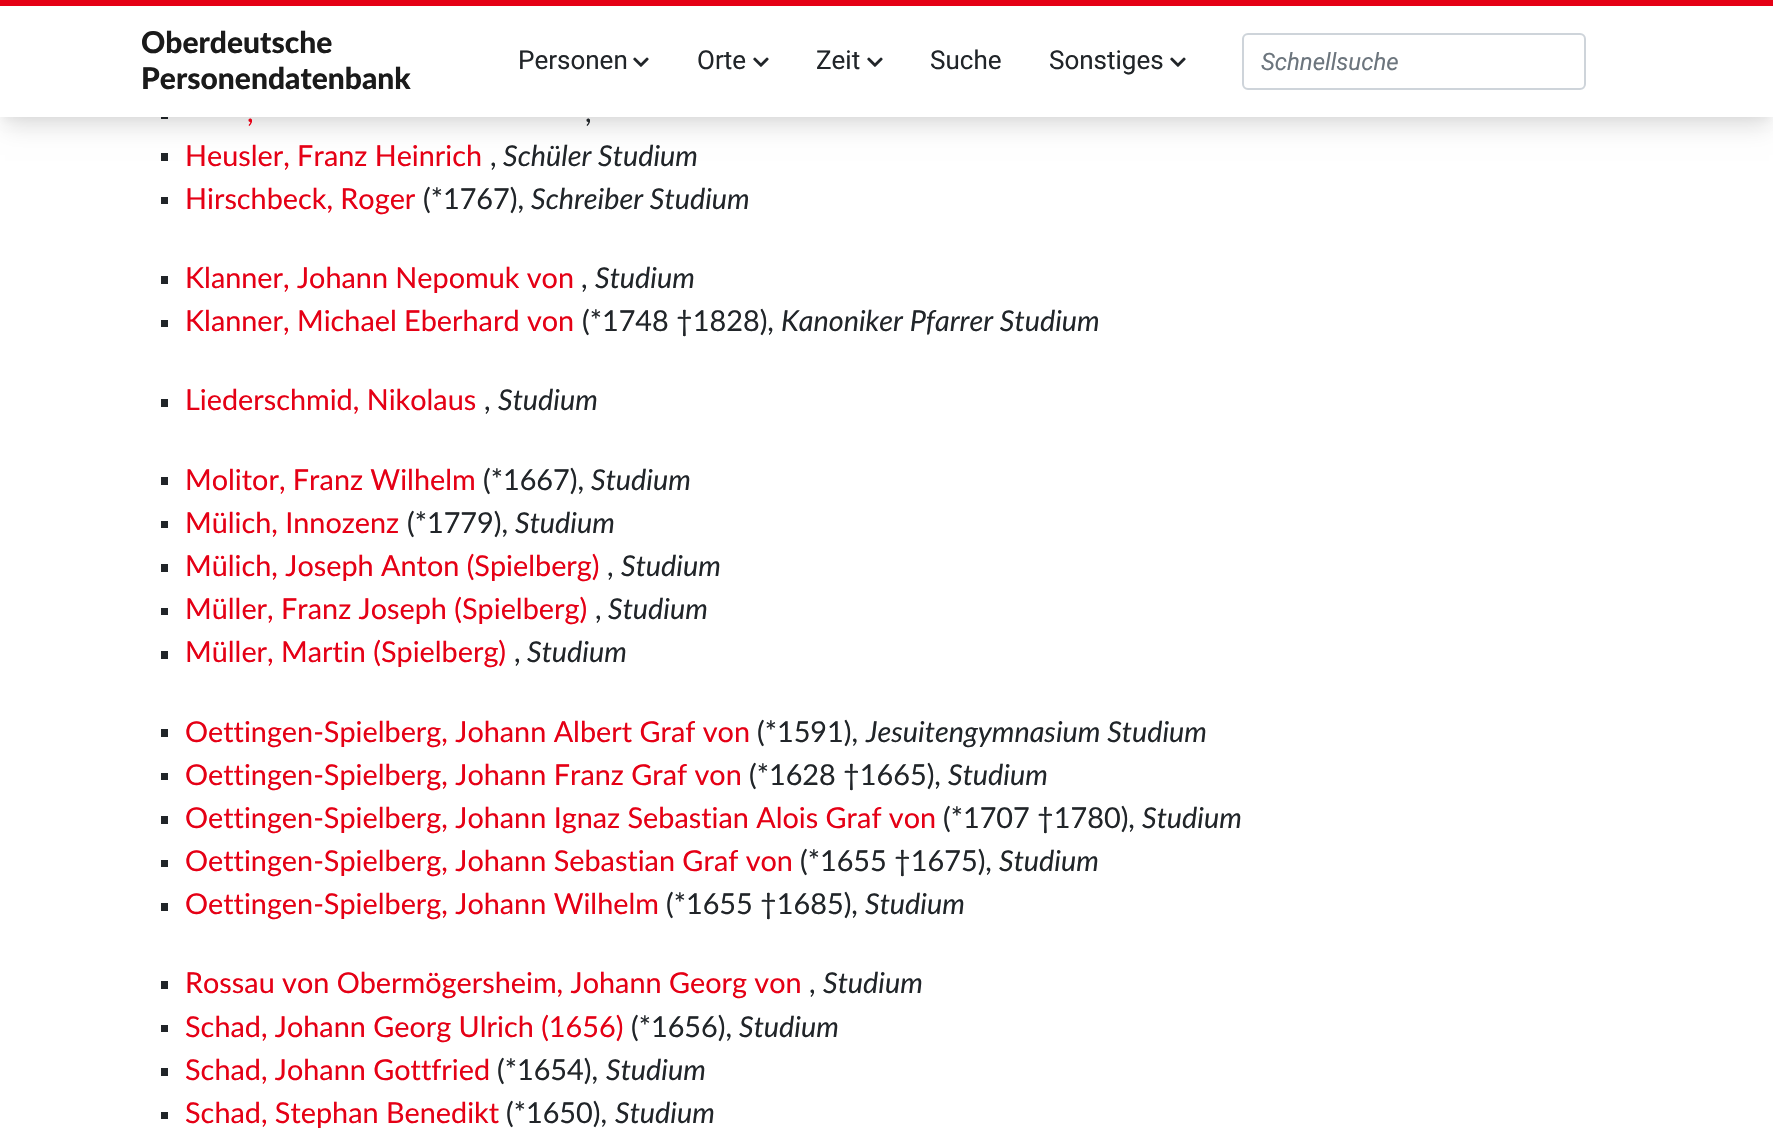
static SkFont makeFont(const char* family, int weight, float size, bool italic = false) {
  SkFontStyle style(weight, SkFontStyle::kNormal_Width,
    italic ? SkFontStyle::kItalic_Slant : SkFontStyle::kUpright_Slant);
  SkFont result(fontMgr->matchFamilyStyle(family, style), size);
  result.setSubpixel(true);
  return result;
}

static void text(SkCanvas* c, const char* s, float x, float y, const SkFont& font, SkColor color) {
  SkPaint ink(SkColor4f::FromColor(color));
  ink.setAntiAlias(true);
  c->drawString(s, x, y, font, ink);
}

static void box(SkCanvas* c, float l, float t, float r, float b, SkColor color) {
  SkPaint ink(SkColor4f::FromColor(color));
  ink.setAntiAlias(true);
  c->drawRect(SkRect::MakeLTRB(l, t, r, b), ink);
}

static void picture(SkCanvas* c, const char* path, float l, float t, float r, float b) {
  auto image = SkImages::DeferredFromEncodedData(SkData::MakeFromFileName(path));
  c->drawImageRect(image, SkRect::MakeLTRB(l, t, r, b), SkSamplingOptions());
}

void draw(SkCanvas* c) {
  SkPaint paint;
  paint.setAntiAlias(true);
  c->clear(0xffffffff);
  box(c, 161, 111, 168, 119, 0xff212529);
  paint.setColor(0x0d000000);
  paint.setMaskFilter(SkMaskFilter::MakeBlur(kNormal_SkBlurStyle, 4.5f));
  c->drawRect(SkRect::MakeLTRB(3, 9, 1770, 120), paint);
  paint.setMaskFilter(nullptr);
  box(c, 161, 153, 168, 161, 0xff212529);
  paint.setColor(0x1a000000);
  paint.setMaskFilter(SkMaskFilter::MakeBlur(kNormal_SkBlurStyle, 11));
  c->drawRect(SkRect::MakeLTRB(5, 20, 1769, 128), paint);
  paint.setMaskFilter(nullptr);
  box(c, 0, 6, 1773, 117, 0xffffffff);
  box(c, 0, 0, 1773, 6, 0xffe50015);
  SkFont face1 = makeFont("Lato", 900, 30);
  text(c, "Oberdeutsche", 141, 53, face1, 0xff1a1a1a);
  text(c, "Personendatenbank", 141, 89, face1, 0xff1a1a1a);
  SkFont face2 = makeFont("Roboto", 400, 26);
  text(c, "Personen", 518, 69, face2, 0xff212529);
  picture(c, "img_01.png", 633, 57, 649, 67);
  text(c, "Orte", 697, 69, face2, 0xff212529);
  picture(c, "img_01.png", 753, 57, 769, 67);
  text(c, "Zeit", 816, 69, face2, 0xff212529);
  picture(c, "img_01.png", 867, 57, 883, 67);
  text(c, "Suche", 930, 69, face2, 0xff212529);
  text(c, "Sonstiges", 1049, 69, face2, 0xff212529);
  picture(c, "img_01.png", 1170, 57, 1186, 67);
  paint.setStyle(SkPaint::kStroke_Style);
  paint.setStrokeWidth(2);
  paint.setColor(0xffced4da);
  c->drawRoundRect(SkRect::MakeLTRB(1243, 34, 1585, 89), 5, 5, paint);
  SkFont face3 = makeFont("Roboto", 400, 24, true);
  text(c, "Schnellsuche", 1261, 70, face3, 0xff6c757d);
  SkFont face4 = makeFont("Lato", 400, 28.8f);
  text(c, ",", 247, 122, face4, 0xffe50015);
  text(c, ",", 585, 122, face4, 0xff212529);
  text(c, "Heusler, Franz Heinrich", 185, 166, face4, 0xffe50015);
  SkFont face5 = makeFont("Lato", 400, 28.8f, true);
  text(c, "Schüler Studium", 503, 166, face5, 0xff212529);
  text(c, ",", 490, 166, face4, 0xff212529);
  box(c, 161, 197, 168, 204, 0xff212529);
  text(c, "Hirschbeck, Roger", 185, 209, face4, 0xffe50015);
  text(c, "(*1767),", 423, 209, face4, 0xff212529);
  text(c, "Schreiber Studium", 531, 209, face5, 0xff212529);
  box(c, 161, 276, 168, 284, 0xff212529);
  text(c, "Klanner, Johann Nepomuk von", 185, 288, face4, 0xffe50015);
  text(c, ",", 581, 288, face4, 0xff212529);
  text(c, "Studium", 595, 288, face5, 0xff212529);
  box(c, 161, 320, 168, 327, 0xff212529);
  text(c, "Klanner, Michael Eberhard von", 185, 331, face4, 0xffe50015);
  text(c, "(*1748 †1828),", 582, 331, face4, 0xff212529);
  text(c, "Kanoniker Pfarrer Studium", 781, 331, face5, 0xff212529);
  box(c, 161, 399, 168, 407, 0xff212529);
  text(c, "Liederschmid, Nikolaus", 185, 410, face4, 0xffe50015);
  text(c, ",", 484, 410, face4, 0xff212529);
  text(c, "Studium", 498, 410, face5, 0xff212529);
  box(c, 161, 477, 168, 485, 0xff212529);
  text(c, "Molitor, Franz Wilhelm", 185, 490, face4, 0xffe50015);
  text(c, "(*1667),", 483, 490, face4, 0xff212529);
  text(c, "Studium", 591, 490, face5, 0xff212529);
  box(c, 161, 521, 168, 528, 0xff212529);
  text(c, "Mülich, Innozenz", 185, 533, face4, 0xffe50015);
  text(c, "(*1779),", 407, 533, face4, 0xff212529);
  text(c, "Studium", 515, 533, face5, 0xff212529);
  box(c, 161, 564, 168, 572, 0xff212529);
  text(c, "Mülich, Joseph Anton (Spielberg)", 185, 576, face4, 0xffe50015);
  text(c, "Studium", 621, 576, face5, 0xff212529);
  text(c, ",", 607, 576, face4, 0xff212529);
  box(c, 161, 608, 168, 615, 0xff212529);
  text(c, "Müller, Franz Joseph (Spielberg)", 185, 619, face4, 0xffe50015);
  text(c, "Studium", 608, 619, face5, 0xff212529);
  text(c, ",", 595, 619, face4, 0xff212529);
  box(c, 161, 651, 168, 659, 0xff212529);
  text(c, "Müller, Martin (Spielberg)", 185, 662, face4, 0xffe50015);
  text(c, "Studium", 527, 662, face5, 0xff212529);
  text(c, ",", 514, 662, face4, 0xff212529);
  box(c, 161, 729, 168, 737, 0xff212529);
  text(c, "Oettingen-Spielberg, Johann Albert Graf von", 185, 742, face4, 0xffe50015);
  text(c, "(*1591),", 757, 742, face4, 0xff212529);
  text(c, "Jesuitengymnasium Studium", 866, 742, face5, 0xff212529);
  box(c, 161, 773, 168, 780, 0xff212529);
  text(c, "Oettingen-Spielberg, Johann Franz Graf von", 185, 785, face4, 0xffe50015);
  text(c, "(*1628 †1665),", 749, 785, face4, 0xff212529);
  text(c, "Studium", 948, 785, face5, 0xff212529);
  box(c, 161, 816, 168, 824, 0xff212529);
  text(c, "Oettingen-Spielberg, Johann Ignaz Sebastian Alois Graf von", 185, 828, face4, 0xffe50015);
  text(c, "(*1707 †1780),", 943, 828, face4, 0xff212529);
  text(c, "Studium", 1142, 828, face5, 0xff212529);
  box(c, 161, 860, 168, 867, 0xff212529);
  text(c, "Oettingen-Spielberg, Johann Sebastian Graf von", 185, 871, face4, 0xffe50015);
  text(c, "(*1655 †1675),", 800, 871, face4, 0xff212529);
  text(c, "Studium", 999, 871, face5, 0xff212529);
  box(c, 161, 903, 168, 911, 0xff212529);
  text(c, "Oettingen-Spielberg, Johann Wilhelm", 185, 914, face4, 0xffe50015);
  text(c, "(*1655 †1685),", 666, 914, face4, 0xff212529);
  text(c, "Studium", 865, 914, face5, 0xff212529);
  box(c, 161, 981, 168, 989, 0xff212529);
  text(c, "Rossau von Obermögersheim, Johann Georg von", 185, 993, face4, 0xffe50015);
  text(c, ",", 809, 993, face4, 0xff212529);
  text(c, "Studium", 823, 993, face5, 0xff212529);
  box(c, 161, 1025, 168, 1032, 0xff212529);
  text(c, "Schad, Johann Georg Ulrich (1656)", 185, 1037, face4, 0xffe50015);
  text(c, "(*1656),", 631, 1037, face4, 0xff212529);
  text(c, "Studium", 739, 1037, face5, 0xff212529);
  box(c, 161, 1068, 168, 1076, 0xff212529);
  text(c, "Schad, Johann Gottfried", 185, 1080, face4, 0xffe50015);
  text(c, "(*1654),", 497, 1080, face4, 0xff212529);
  text(c, "Studium", 606, 1080, face5, 0xff212529);
  box(c, 161, 1112, 168, 1119, 0xff212529);
  text(c, "Schad, Stephan Benedikt", 185, 1123, face4, 0xffe50015);
  text(c, "(*1650),", 506, 1123, face4, 0xff212529);
  text(c, "Studium", 615, 1123, face5, 0xff212529);
}
